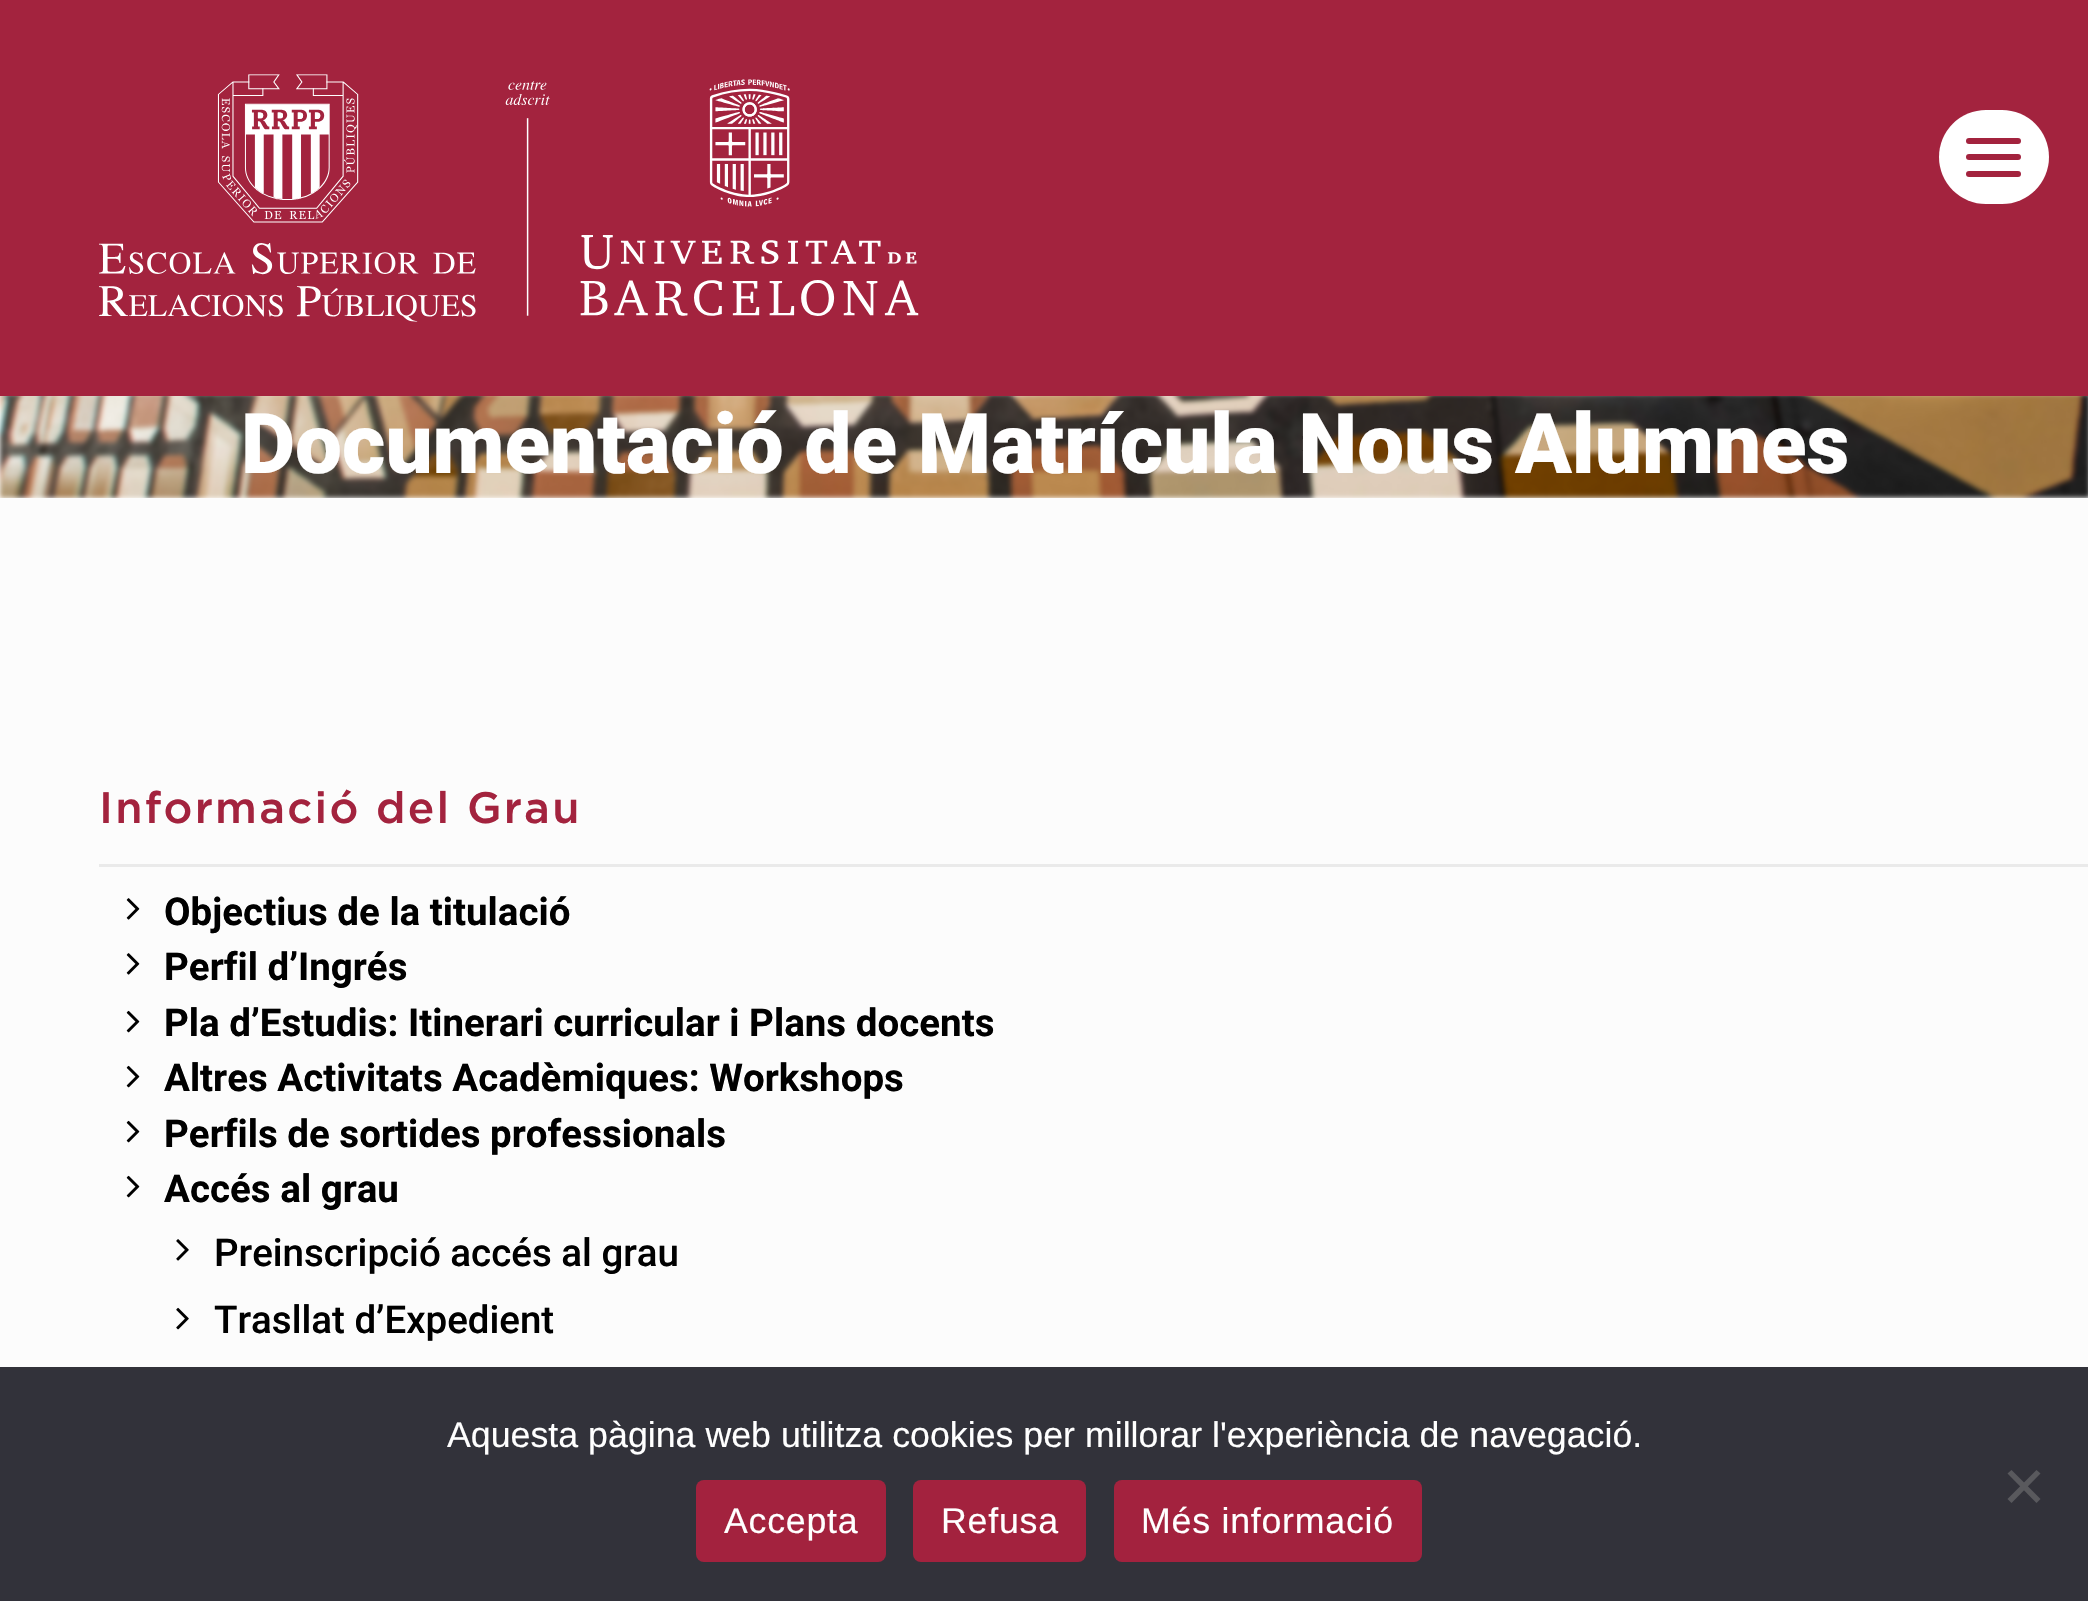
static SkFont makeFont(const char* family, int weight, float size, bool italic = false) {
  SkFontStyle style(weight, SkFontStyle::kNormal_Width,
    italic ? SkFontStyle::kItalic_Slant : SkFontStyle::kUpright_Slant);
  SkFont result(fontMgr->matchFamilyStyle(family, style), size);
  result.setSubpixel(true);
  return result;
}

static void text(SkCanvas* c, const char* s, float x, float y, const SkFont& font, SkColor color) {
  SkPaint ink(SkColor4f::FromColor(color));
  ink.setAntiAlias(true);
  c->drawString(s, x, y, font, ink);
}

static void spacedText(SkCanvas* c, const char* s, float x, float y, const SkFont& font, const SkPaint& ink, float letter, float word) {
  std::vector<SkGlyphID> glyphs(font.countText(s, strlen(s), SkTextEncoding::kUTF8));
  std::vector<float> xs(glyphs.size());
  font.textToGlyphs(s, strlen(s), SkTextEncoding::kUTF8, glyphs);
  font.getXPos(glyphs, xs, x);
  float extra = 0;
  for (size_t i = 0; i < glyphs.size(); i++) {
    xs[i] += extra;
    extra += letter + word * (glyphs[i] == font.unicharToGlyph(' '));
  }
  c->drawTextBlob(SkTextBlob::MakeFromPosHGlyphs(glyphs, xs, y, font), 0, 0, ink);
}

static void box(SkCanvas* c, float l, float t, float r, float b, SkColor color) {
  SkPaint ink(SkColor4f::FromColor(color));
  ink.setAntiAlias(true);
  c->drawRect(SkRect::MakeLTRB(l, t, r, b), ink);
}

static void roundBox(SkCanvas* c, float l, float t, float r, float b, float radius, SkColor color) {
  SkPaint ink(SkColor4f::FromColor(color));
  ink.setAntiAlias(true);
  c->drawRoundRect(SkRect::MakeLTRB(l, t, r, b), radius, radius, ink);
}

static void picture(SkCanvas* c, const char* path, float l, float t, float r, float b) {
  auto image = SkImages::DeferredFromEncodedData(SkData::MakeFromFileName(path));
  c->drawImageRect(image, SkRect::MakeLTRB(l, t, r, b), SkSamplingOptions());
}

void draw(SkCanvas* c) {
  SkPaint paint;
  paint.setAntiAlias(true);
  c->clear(0xffffffff);
  box(c, 0, 0, 2088, 396, 0xffa3233e);
  picture(c, "img_01.png", 99, 74, 919, 322);
  roundBox(c, 1939, 110, 2049, 204, 47, 0xffffffff);
  roundBox(c, 1966, 154, 2021, 160, 3, 0xffa3233e);
  roundBox(c, 1966, 138, 2021, 144, 3, 0xffa3233e);
  roundBox(c, 1966, 171, 2021, 177, 3, 0xffa3233e);
  picture(c, "img_02.png", 0, 396, 2088, 498);
  SkFont face1 = makeFont("Roboto", 900, 83.6f);
  text(c, "Documentació de Matrícula Nous Alumnes", 241, 473, face1, 0xffffffff);
  box(c, 0, 498, 2088, 1367, 0xfffcfcfc);
  box(c, 99, 864, 2088, 867, 0xffeaeaea);
  SkFont face2 = makeFont("Gotham", 500, 44);
  paint.setColor(0xffa3233e);
  spacedText(c, "Informació del Grau", 99, 823, face2, paint, 2.25f, 0);
  picture(c, "img_03.png", 126, 898, 140, 920);
  SkFont face3 = makeFont("Roboto", 700, 38.5f);
  text(c, "Objectius de la titulació", 164, 925, face3, 0xff000000);
  picture(c, "img_03.png", 126, 953, 140, 975);
  text(c, "Perfil d’Ingrés", 164, 980, face3, 0xff000000);
  picture(c, "img_04.png", 126, 1010, 140, 1033);
  text(c, "Pla d’Estudis: Itinerari curricular i Plans docents", 164, 1036, face3, 0xff000000);
  picture(c, "img_04.png", 126, 1065, 140, 1088);
  text(c, "Altres Activitats Acadèmiques: Workshops", 164, 1091, face3, 0xff000000);
  picture(c, "img_04.png", 126, 1120, 140, 1143);
  text(c, "Perfils de sortides professionals", 164, 1147, face3, 0xff000000);
  picture(c, "img_04.png", 126, 1175, 140, 1198);
  text(c, "Accés al grau", 164, 1202, face3, 0xff000000);
  picture(c, "img_05.png", 176, 1239, 189, 1261);
  SkFont face4 = makeFont("Roboto", 500, 38.5f);
  text(c, "Preinscripció accés al grau", 214, 1266, face4, 0xff000000);
  picture(c, "img_06.png", 176, 1307, 189, 1330);
  text(c, "Trasllat d’Expedient", 214, 1333, face4, 0xff000000);
  box(c, 0, 1367, 2088, 1601, 0xff32323a);
  SkFont face5 = makeFont("Liberation Sans", 400, 35.75f);
  text(c, "Aquesta pàgina web utilitza cookies per millorar l'experiència de navegació.", 447, 1447, face5, 0xffffffff);
  paint.setColor(0xff59595d);
  c->drawPath(SkPathBuilder().moveTo(2036.5f, 1470).lineTo(2040.5f, 1473.5f).lineTo(2011.5f, 1503).lineTo(2007.5f, 1499).close().detach(), paint);
  c->drawPath(SkPathBuilder().moveTo(2007.5f, 1473.5f).lineTo(2011.5f, 1470).lineTo(2040.5f, 1499).lineTo(2036.5f, 1503).close().detach(), paint);
  roundBox(c, 696, 1480, 886, 1562, 8, 0xffa3223e);
  paint.setColor(0xffffffff);
  spacedText(c, "Accepta", 724, 1533, face5, paint, 0.75f, 0);
  roundBox(c, 913, 1480, 1086, 1562, 8, 0xffa3223e);
  spacedText(c, "Refusa", 941, 1533, face5, paint, 0.75f, 0);
  roundBox(c, 1114, 1480, 1422, 1562, 8, 0xffa3223e);
  spacedText(c, "Més informació", 1141, 1533, face5, paint, 0.75f, 0);
}
